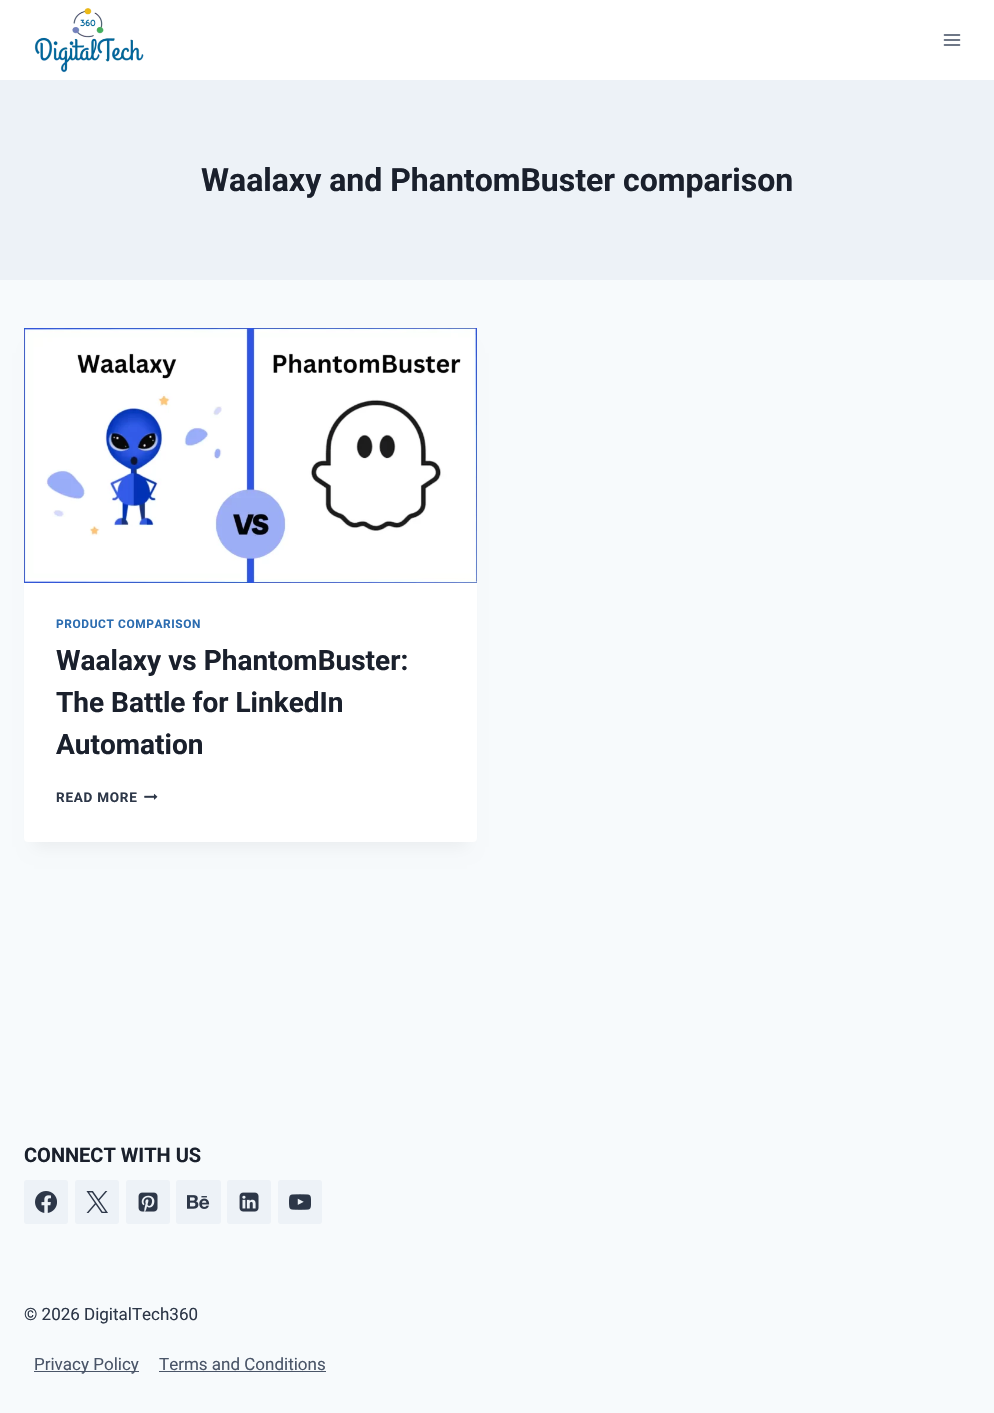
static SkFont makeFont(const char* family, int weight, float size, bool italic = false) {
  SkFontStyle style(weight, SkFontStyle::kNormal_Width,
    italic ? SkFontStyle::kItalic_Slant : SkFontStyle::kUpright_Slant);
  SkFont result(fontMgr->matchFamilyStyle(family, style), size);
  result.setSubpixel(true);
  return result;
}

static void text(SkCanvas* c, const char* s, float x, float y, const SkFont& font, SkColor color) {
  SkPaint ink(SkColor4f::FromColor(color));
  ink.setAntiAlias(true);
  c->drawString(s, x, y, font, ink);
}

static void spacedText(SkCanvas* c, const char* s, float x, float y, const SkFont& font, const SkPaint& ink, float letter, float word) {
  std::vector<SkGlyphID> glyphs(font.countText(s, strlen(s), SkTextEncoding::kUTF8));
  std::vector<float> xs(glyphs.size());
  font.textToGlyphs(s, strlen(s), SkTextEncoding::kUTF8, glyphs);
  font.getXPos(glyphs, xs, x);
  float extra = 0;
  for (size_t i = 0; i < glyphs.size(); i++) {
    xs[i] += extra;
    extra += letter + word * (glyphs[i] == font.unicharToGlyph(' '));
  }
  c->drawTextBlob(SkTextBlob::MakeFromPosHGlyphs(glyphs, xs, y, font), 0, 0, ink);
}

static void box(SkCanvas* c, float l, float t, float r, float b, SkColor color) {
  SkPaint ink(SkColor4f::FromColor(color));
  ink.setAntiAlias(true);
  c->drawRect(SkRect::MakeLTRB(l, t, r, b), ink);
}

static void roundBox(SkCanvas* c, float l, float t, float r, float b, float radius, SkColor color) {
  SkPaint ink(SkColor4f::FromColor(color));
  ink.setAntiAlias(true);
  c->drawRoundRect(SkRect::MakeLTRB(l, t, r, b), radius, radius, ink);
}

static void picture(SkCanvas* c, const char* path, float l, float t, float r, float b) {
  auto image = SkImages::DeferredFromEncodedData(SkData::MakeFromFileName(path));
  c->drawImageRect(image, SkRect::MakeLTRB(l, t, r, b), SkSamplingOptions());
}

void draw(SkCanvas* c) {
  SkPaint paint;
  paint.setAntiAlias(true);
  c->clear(0xfff7fafc);
  box(c, 0, 0, 994, 80, 0xffffffff);
  picture(c, "img_01.png", 34, 8, 144, 73);
  picture(c, "img_02.png", 943, 34, 961, 46);
  box(c, 0, 80, 994, 280, 0xffedf2f7);
  SkFont face1 = makeFont("Roboto", 700, 32);
  text(c, "Waalaxy and PhantomBuster comparison", 201, 191, face1, 0xff1a202c);
  paint.setColor(0x0d000000);
  paint.setMaskFilter(SkMaskFilter::MakeBlur(kNormal_SkBlurStyle, 7.5f));
  c->drawRect(SkRect::MakeLTRB(34, 353, 467, 847), paint);
  paint.setMaskFilter(nullptr);
  roundBox(c, 24, 328, 477, 842, 4, 0xffffffff);
  picture(c, "img_03.png", 24, 328, 477, 583);
  SkFont face2 = makeFont("Roboto", 700, 11.9f);
  paint.setColor(0xff2b6cb0);
  spacedText(c, "PRODUCT COMPARISON", 56, 628, face2, paint, 0.6f, 0);
  SkFont face3 = makeFont("Roboto", 700, 28);
  text(c, "Waalaxy vs PhantomBuster:", 56, 670, face3, 0xff1a202c);
  text(c, "The Battle for LinkedIn", 56, 712, face3, 0xff1a202c);
  text(c, "Automation", 56, 754, face3, 0xff1a202c);
  SkFont face4 = makeFont("Roboto", 700, 13.5f);
  paint.setColor(0xff2d3748);
  spacedText(c, "READ MORE", 56, 802, face4, paint, 0.75f, 0);
  picture(c, "img_04.png", 144, 793, 158, 800);
  SkFont face5 = makeFont("Roboto", 700, 20);
  text(c, "CONNECT WITH US", 24, 1162, face5, 0xff1a202c);
  roundBox(c, 24, 1180, 68, 1224, 3, 0xffedf2f7);
  picture(c, "img_05.png", 35, 1191, 57, 1213);
  roundBox(c, 75, 1180, 119, 1224, 3, 0xffedf2f7);
  picture(c, "img_06.png", 86, 1191, 108, 1213);
  roundBox(c, 126, 1180, 170, 1224, 3, 0xffedf2f7);
  picture(c, "img_07.png", 138, 1192, 158, 1212);
  roundBox(c, 176, 1180, 221, 1224, 3, 0xffedf2f7);
  picture(c, "img_08.png", 187, 1195, 210, 1209);
  roundBox(c, 227, 1180, 271, 1224, 3, 0xffedf2f7);
  picture(c, "img_09.png", 239, 1192, 259, 1212);
  roundBox(c, 278, 1180, 322, 1224, 3, 0xffedf2f7);
  picture(c, "img_10.png", 289, 1194, 311, 1210);
  SkFont face6 = makeFont("Roboto", 400, 17);
  text(c, "© 2026 DigitalTech360", 24, 1320, face6, 0xff2d3748);
  box(c, 34, 1371, 139, 1372, 0xff4a5568);
  text(c, "Privacy Policy", 34, 1370, face6, 0xff4a5568);
  text(c, "Terms and Conditions", 159, 1370, face6, 0xff4a5568);
  box(c, 159, 1371, 326, 1372, 0xff4a5568);
}
